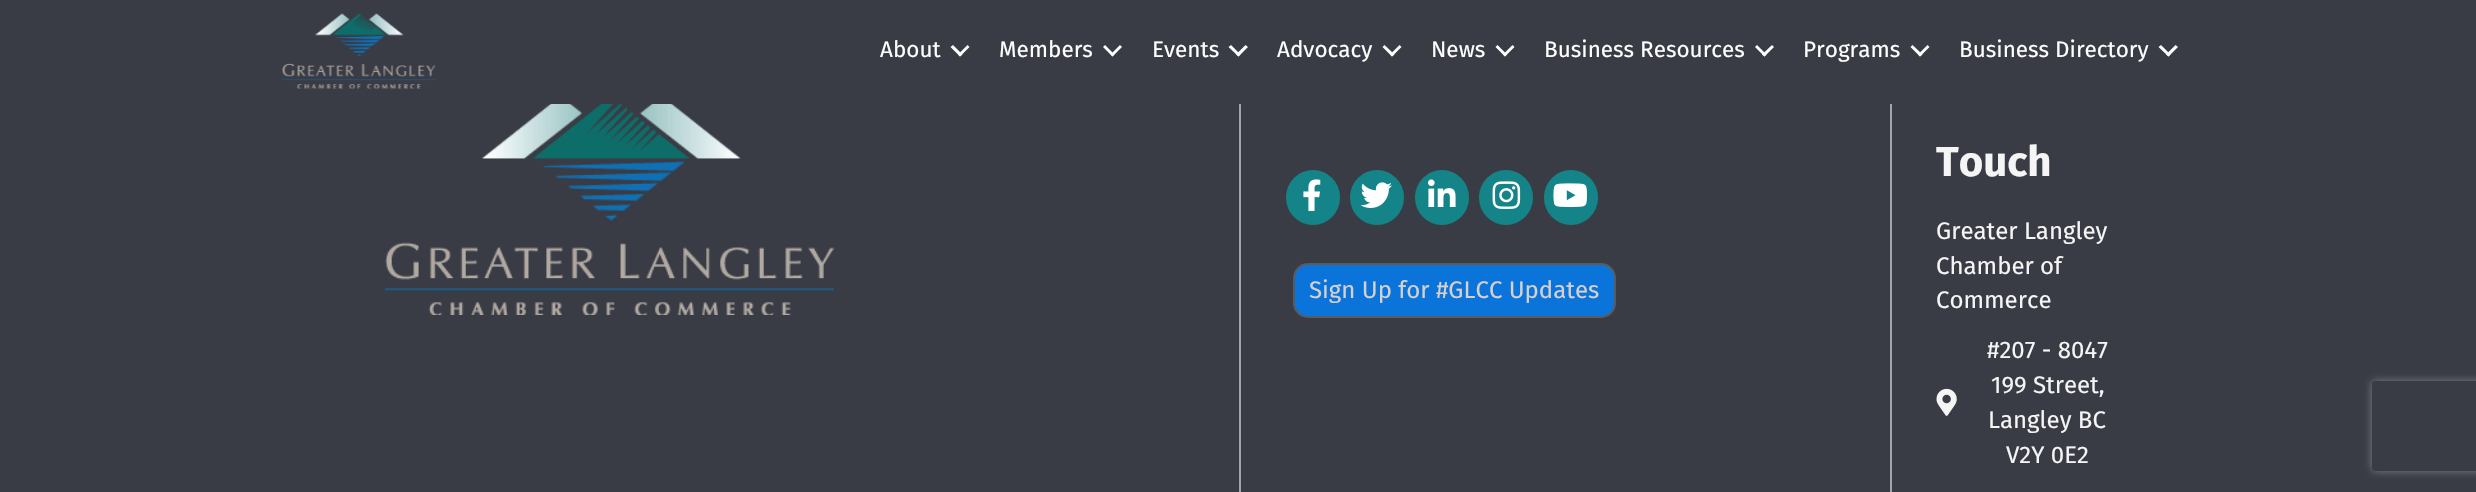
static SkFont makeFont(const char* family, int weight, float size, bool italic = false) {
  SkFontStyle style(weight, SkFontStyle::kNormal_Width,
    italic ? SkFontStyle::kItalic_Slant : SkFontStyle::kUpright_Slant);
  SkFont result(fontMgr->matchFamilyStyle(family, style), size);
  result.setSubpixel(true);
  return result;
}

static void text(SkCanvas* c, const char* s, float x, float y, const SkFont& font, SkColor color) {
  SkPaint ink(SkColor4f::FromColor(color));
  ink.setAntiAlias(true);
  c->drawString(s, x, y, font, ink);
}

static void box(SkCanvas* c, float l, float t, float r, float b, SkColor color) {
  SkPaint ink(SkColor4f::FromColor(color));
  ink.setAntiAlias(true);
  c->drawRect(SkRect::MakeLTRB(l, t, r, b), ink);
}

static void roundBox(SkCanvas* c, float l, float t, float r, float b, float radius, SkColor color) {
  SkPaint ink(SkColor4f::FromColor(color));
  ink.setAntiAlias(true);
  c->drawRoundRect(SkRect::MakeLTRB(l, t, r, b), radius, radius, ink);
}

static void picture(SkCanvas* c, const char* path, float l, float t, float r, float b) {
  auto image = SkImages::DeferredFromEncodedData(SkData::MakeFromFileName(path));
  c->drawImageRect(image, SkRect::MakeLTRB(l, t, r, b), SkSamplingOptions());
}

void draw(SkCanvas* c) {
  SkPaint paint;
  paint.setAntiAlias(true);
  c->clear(0xff393b45);
  picture(c, "img_01.png", 281, 13, 436, 89);
  SkFont face1 = makeFont("Fira Sans", 400, 22.5f);
  text(c, "About", 880, 57, face1, 0xffffffff);
  paint.setColor(0xffffffff);
  c->drawPath(SkPathBuilder().moveTo(967.5f, 45).lineTo(969.5f, 47).lineTo(960, 56.5f).lineTo(958, 54.5f).close().detach(), paint);
  c->drawPath(SkPathBuilder().moveTo(953, 45).lineTo(962.5f, 54.5f).lineTo(960, 56.5f).lineTo(950.5f, 47).close().detach(), paint);
  text(c, "Members", 999, 57, face1, 0xffffffff);
  c->drawPath(SkPathBuilder().moveTo(1120, 45).lineTo(1122, 47).lineTo(1112.5f, 56.5f).lineTo(1110.5f, 54.5f).close().detach(), paint);
  c->drawPath(SkPathBuilder().moveTo(1105, 45).lineTo(1114.5f, 54.5f).lineTo(1112.5f, 56.5f).lineTo(1103, 47).close().detach(), paint);
  text(c, "Events", 1152, 57, face1, 0xffffffff);
  c->drawPath(SkPathBuilder().moveTo(1245.5f, 45).lineTo(1248, 47).lineTo(1238.5f, 56.5f).lineTo(1236, 54.5f).close().detach(), paint);
  c->drawPath(SkPathBuilder().moveTo(1231, 45).lineTo(1240.5f, 54.5f).lineTo(1238.5f, 56.5f).lineTo(1228.5f, 47).close().detach(), paint);
  text(c, "Advocacy", 1277, 57, face1, 0xffffffff);
  c->drawPath(SkPathBuilder().moveTo(1399.5f, 45).lineTo(1401.5f, 47).lineTo(1392, 56.5f).lineTo(1390, 54.5f).close().detach(), paint);
  c->drawPath(SkPathBuilder().moveTo(1384.5f, 45).lineTo(1394.5f, 54.5f).lineTo(1392, 56.5f).lineTo(1382.5f, 47).close().detach(), paint);
  text(c, "News", 1431, 57, face1, 0xffffffff);
  c->drawPath(SkPathBuilder().moveTo(1512.5f, 45).lineTo(1514.5f, 47).lineTo(1505, 56.5f).lineTo(1503, 54.5f).close().detach(), paint);
  c->drawPath(SkPathBuilder().moveTo(1497.5f, 45).lineTo(1507, 54.5f).lineTo(1505, 56.5f).lineTo(1495.5f, 47).close().detach(), paint);
  text(c, "Business Resources", 1544, 57, face1, 0xffffffff);
  c->drawPath(SkPathBuilder().moveTo(1772, 45).lineTo(1774, 47).lineTo(1764.5f, 56.5f).lineTo(1762, 54.5f).close().detach(), paint);
  c->drawPath(SkPathBuilder().moveTo(1757, 45).lineTo(1766.5f, 54.5f).lineTo(1764.5f, 56.5f).lineTo(1755, 47).close().detach(), paint);
  text(c, "Programs", 1803, 57, face1, 0xffffffff);
  c->drawPath(SkPathBuilder().moveTo(1927.5f, 45).lineTo(1929.5f, 47).lineTo(1920, 56.5f).lineTo(1918, 54.5f).close().detach(), paint);
  c->drawPath(SkPathBuilder().moveTo(1912.5f, 45).lineTo(1922.5f, 54.5f).lineTo(1920, 56.5f).lineTo(1910.5f, 47).close().detach(), paint);
  text(c, "Business Directory", 1959, 57, face1, 0xffffffff);
  c->drawPath(SkPathBuilder().moveTo(2175.5f, 45).lineTo(2178, 47).lineTo(2168.5f, 56.5f).lineTo(2166, 54.5f).close().detach(), paint);
  c->drawPath(SkPathBuilder().moveTo(2161, 45).lineTo(2170.5f, 54.5f).lineTo(2168.5f, 56.5f).lineTo(2158.5f, 47).close().detach(), paint);
  picture(c, "img_02.png", 384, 104, 834, 315);
  box(c, 1239, 104, 1241, 492, 0xffa4a5a9);
  roundBox(c, 1286, 170, 1340, 225, 27, 0xff148488);
  picture(c, "img_03.png", 1303, 179, 1321, 211);
  roundBox(c, 1350, 170, 1404, 225, 27, 0xff148488);
  picture(c, "img_04.png", 1360, 182, 1392, 208);
  roundBox(c, 1415, 170, 1469, 225, 27, 0xff148488);
  picture(c, "img_05.png", 1428, 179, 1456, 207);
  roundBox(c, 1479, 170, 1533, 225, 27, 0xff148488);
  picture(c, "img_06.png", 1492, 181, 1521, 209);
  roundBox(c, 1544, 170, 1598, 225, 27, 0xff148488);
  picture(c, "img_07.png", 1553, 183, 1587, 207);
  paint.setColor(0xff0a74db);
  c->drawRoundRect(SkRect::MakeLTRB(1294, 264, 1615, 317), 14, 14, paint);
  paint.setStyle(SkPaint::kStroke_Style);
  paint.setStrokeWidth(2);
  paint.setColor(0xff5b5b5b);
  c->drawRoundRect(SkRect::MakeLTRB(1294, 264, 1615, 317), 14, 14, paint);
  SkFont face2 = makeFont("Fira Sans", 400, 24);
  text(c, "Sign Up for #GLCC Updates", 1309, 298, face2, 0xffd7d0cb);
  box(c, 1890, 104, 1892, 492, 0xffa4a5a9);
  SkFont face3 = makeFont("Fira Sans", 700, 42);
  text(c, "Touch", 1936, 176, face3, 0xfff5f5f5);
  text(c, "Greater Langley", 1936, 239, face2, 0xfff5f5f5);
  text(c, "Chamber of", 1936, 274, face2, 0xfff5f5f5);
  text(c, "Commerce", 1936, 308, face2, 0xfff5f5f5);
  picture(c, "img_08.png", 1936, 388, 1957, 416);
  text(c, "#207 - 8047", 1987, 358, face2, 0xfff5f5f5);
  text(c, "199 Street,", 1991, 393, face2, 0xfff5f5f5);
  text(c, "Langley BC", 1988, 428, face2, 0xfff5f5f5);
  text(c, "V2Y 0E2", 2006, 463, face2, 0xfff5f5f5);
  c->save();
  c->clipPath(SkPathBuilder(SkPathFillType::kEvenOdd).moveTo(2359, 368).lineTo(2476, 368).lineTo(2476, 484).lineTo(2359, 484).close().moveTo(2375, 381).lineTo(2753, 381).cubicTo(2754.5f, 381, 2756, 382.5f, 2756, 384).lineTo(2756, 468).cubicTo(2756, 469.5f, 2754.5f, 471, 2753, 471).lineTo(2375, 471).cubicTo(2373.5f, 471, 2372, 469.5f, 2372, 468).lineTo(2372, 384).cubicTo(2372, 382.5f, 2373.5f, 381, 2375, 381).close().detach(), true);
  paint.setStyle(SkPaint::kFill_Style);
  paint.setColor(0xff808080);
  paint.setMaskFilter(SkMaskFilter::MakeBlur(kNormal_SkBlurStyle, 4));
  c->drawRoundRect(SkRect::MakeLTRB(2372, 381, 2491, 471), 3, 3, paint);
  paint.setMaskFilter(nullptr);
  c->restore();
}
